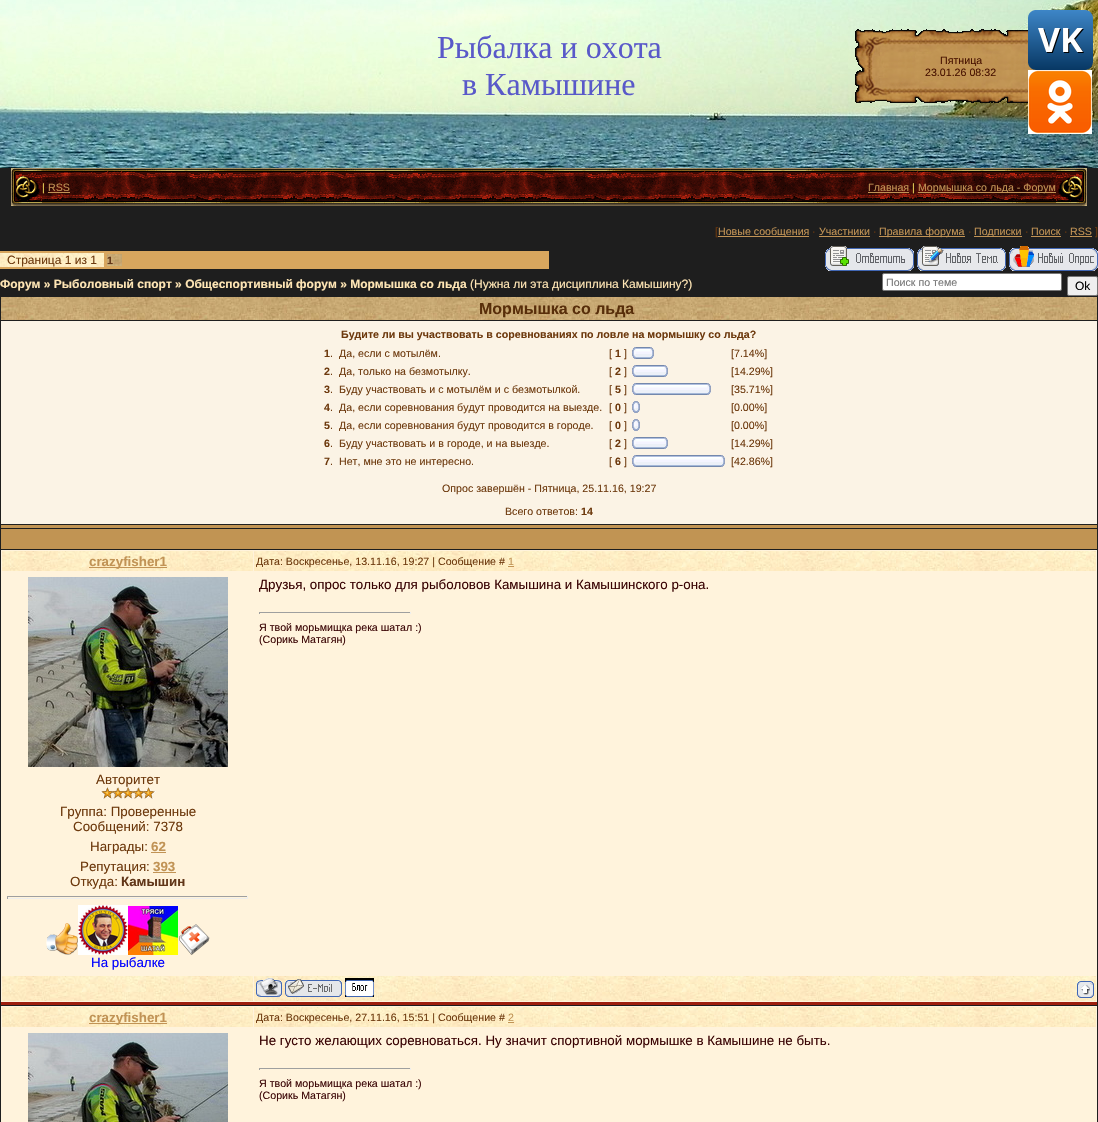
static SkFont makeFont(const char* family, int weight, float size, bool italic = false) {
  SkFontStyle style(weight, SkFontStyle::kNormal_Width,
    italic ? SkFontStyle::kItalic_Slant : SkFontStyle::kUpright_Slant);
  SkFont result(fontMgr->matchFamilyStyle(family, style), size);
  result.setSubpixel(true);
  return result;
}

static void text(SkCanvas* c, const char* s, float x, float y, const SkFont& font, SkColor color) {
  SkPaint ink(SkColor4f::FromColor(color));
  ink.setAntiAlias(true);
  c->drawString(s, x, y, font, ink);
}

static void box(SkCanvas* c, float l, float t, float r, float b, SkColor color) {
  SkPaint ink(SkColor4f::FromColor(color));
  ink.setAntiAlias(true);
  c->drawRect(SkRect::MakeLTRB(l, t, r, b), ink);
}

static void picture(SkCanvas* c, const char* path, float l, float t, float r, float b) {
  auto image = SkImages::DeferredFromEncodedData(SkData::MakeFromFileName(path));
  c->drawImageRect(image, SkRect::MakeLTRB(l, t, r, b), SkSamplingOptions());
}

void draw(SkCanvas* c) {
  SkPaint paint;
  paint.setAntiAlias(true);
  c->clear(0xff1e1e1e);
  picture(c, "img_01.png", 0, 0, 1098, 168);
  SkFont face1 = makeFont("Liberation Serif", 400, 32);
  text(c, "Рыбалка и охота", 437, 58, face1, 0xff5959c9);
  text(c, "в Камышине", 462, 95, face1, 0xff5959c9);
  picture(c, "img_02.png", 855, 29, 1036, 103);
  SkFont face2 = makeFont("Liberation Sans", 400, 10.65f);
  text(c, "Пятница", 940, 64, face2, 0xff491300);
  text(c, "23.01.26 08:32", 925, 76, face2, 0xff491300);
  picture(c, "img_03.png", 1028, 10, 1093, 70);
  picture(c, "img_04.png", 1028, 70, 1092, 134);
  picture(c, "img_05.png", 42, 168, 1056, 206);
  picture(c, "img_06.png", 11, 168, 42, 206);
  text(c, "|", 42, 191, face2, 0xffefd959);
  text(c, "RSS", 48, 191, face2, 0xffc19355);
  box(c, 48, 192, 70, 193, 0xffc19355);
  text(c, "Главная", 868, 191, face2, 0xffc19355);
  box(c, 868, 192, 909, 193, 0xffc19355);
  text(c, "|", 912, 191, face2, 0xffefd959);
  box(c, 918, 192, 1056, 193, 0xffc19355);
  text(c, "Мормышка со льда - Форум", 918, 191, face2, 0xffc19355);
  picture(c, "img_07.png", 1056, 168, 1087, 206);
  text(c, "[", 715, 235, face2, 0xff6d390d);
  box(c, 718, 236, 809, 237, 0xffc19355);
  text(c, "Новые сообщения", 718, 235, face2, 0xffc19355);
  text(c, "·", 812, 235, face2, 0xff6d390d);
  text(c, "Участники", 819, 235, face2, 0xffc19355);
  box(c, 819, 236, 870, 237, 0xffc19355);
  text(c, "·", 873, 235, face2, 0xff6d390d);
  box(c, 879, 236, 965, 237, 0xffc19355);
  text(c, "Правила форума", 879, 235, face2, 0xffc19355);
  text(c, "·", 968, 235, face2, 0xff6d390d);
  box(c, 974, 236, 1022, 237, 0xffc19355);
  text(c, "Подписки", 974, 235, face2, 0xffc19355);
  text(c, "·", 1025, 235, face2, 0xff6d390d);
  text(c, "Поиск", 1031, 235, face2, 0xffc19355);
  box(c, 1031, 236, 1061, 237, 0xffc19355);
  text(c, "·", 1064, 235, face2, 0xff6d390d);
  text(c, "RSS", 1070, 235, face2, 0xffc19355);
  box(c, 1070, 236, 1092, 237, 0xffc19355);
  text(c, "]", 1095, 235, face2, 0xff6d390d);
  box(c, 0, 251, 549, 269, 0xffd8a65e);
  picture(c, "img_08.png", 0, 253, 104, 267);
  SkFont face3 = makeFont("Liberation Sans", 400, 12);
  text(c, "Страница 1 из 1", 7, 264, face3, 0xff6d390d);
  picture(c, "img_09.png", 107, 254, 122, 266);
  SkFont face4 = makeFont("Liberation Sans", 700, 10.65f);
  text(c, "1", 107, 264, face4, 0xff613618);
  picture(c, "img_10.png", 825, 246, 914, 271);
  picture(c, "img_11.png", 917, 246, 1006, 271);
  picture(c, "img_12.png", 1009, 246, 1098, 271);
  SkFont face5 = makeFont("Liberation Sans", 700, 12);
  text(c, "Форум » Рыболовный спорт » Общеспортивный форум » Мормышка со льда", 0, 288, face5, 0xffffe6b5);
  text(c, "(Нужна ли эта дисциплина Камышину?)", 470, 288, face3, 0xffffe6b5);
  paint.setColor(0xffffffff);
  c->drawRoundRect(SkRect::MakeLTRB(882.5f, 273.5f, 1061.5f, 290.5f), 1.5f, 1.5f, paint);
  paint.setStyle(SkPaint::kStroke_Style);
  paint.setStrokeWidth(1);
  paint.setColor(0xff767676);
  c->drawRoundRect(SkRect::MakeLTRB(882.5f, 273.5f, 1061.5f, 290.5f), 1.5f, 1.5f, paint);
  text(c, "Поиск по теме", 886, 286, face2, 0xff757575);
  paint.setStyle(SkPaint::kFill_Style);
  paint.setColor(0xffefefef);
  c->drawRoundRect(SkRect::MakeLTRB(1067.5f, 276.5f, 1097.5f, 295.5f), 1.5f, 1.5f, paint);
  paint.setStyle(SkPaint::kStroke_Style);
  paint.setColor(0xff767676);
  c->drawRoundRect(SkRect::MakeLTRB(1067.5f, 276.5f, 1097.5f, 295.5f), 1.5f, 1.5f, paint);
  text(c, "Ok", 1075, 290, face3, 0xff000000);
  picture(c, "img_13.png", 1, 297, 1097, 320);
  SkFont face6 = makeFont("Liberation Sans", 700, 16);
  text(c, "Мормышка со льда", 479, 314, face6, 0xff582e0a);
  box(c, 1, 321, 1097, 524, 0xfffbf3e5);
  text(c, "Будите ли вы участвовать в соревнованиях по ловле на мормышку со льда?", 341, 338, face4, 0xff6d390d);
  text(c, "1", 324, 357, face4, 0xff6d390d);
  text(c, ".", 330, 357, face2, 0xff6d390d);
  text(c, "Да, если с мотылём.", 339, 357, face2, 0xff6d390d);
  text(c, "[", 609, 357, face2, 0xff6d390d);
  text(c, "1", 615, 357, face4, 0xff6d390d);
  text(c, "]", 624, 357, face2, 0xff6d390d);
  picture(c, "img_14.png", 632, 347, 636, 359);
  picture(c, "img_15.png", 636, 347, 650, 359);
  picture(c, "img_16.png", 650, 347, 654, 359);
  text(c, "[7.14%]", 731, 357, face2, 0xff6d390d);
  text(c, "2", 324, 375, face4, 0xff6d390d);
  text(c, ".", 330, 375, face2, 0xff6d390d);
  text(c, "Да, только на безмотылку.", 339, 375, face2, 0xff6d390d);
  text(c, "[", 609, 375, face2, 0xff6d390d);
  text(c, "2", 615, 375, face4, 0xff6d390d);
  text(c, "]", 624, 375, face2, 0xff6d390d);
  picture(c, "img_14.png", 632, 365, 636, 377);
  picture(c, "img_17.png", 636, 365, 664, 377);
  picture(c, "img_16.png", 664, 365, 668, 377);
  text(c, "[14.29%]", 731, 375, face2, 0xff6d390d);
  text(c, "3", 324, 393, face4, 0xff6d390d);
  text(c, ".", 330, 393, face2, 0xff6d390d);
  text(c, "Буду участвовать и с мотылём и с безмотылкой.", 339, 393, face2, 0xff6d390d);
  text(c, "[", 609, 393, face2, 0xff6d390d);
  text(c, "5", 615, 393, face4, 0xff6d390d);
  text(c, "]", 624, 393, face2, 0xff6d390d);
  picture(c, "img_14.png", 632, 383, 636, 395);
  picture(c, "img_18.png", 636, 383, 707, 395);
  picture(c, "img_16.png", 707, 383, 711, 395);
  text(c, "[35.71%]", 731, 393, face2, 0xff6d390d);
  text(c, "4", 324, 411, face4, 0xff6d390d);
  text(c, ".", 330, 411, face2, 0xff6d390d);
  text(c, "Да, если соревнования будут проводится на выезде.", 339, 411, face2, 0xff6d390d);
  text(c, "[", 609, 411, face2, 0xff6d390d);
  text(c, "0", 615, 411, face4, 0xff6d390d);
  text(c, "]", 624, 411, face2, 0xff6d390d);
  picture(c, "img_14.png", 632, 401, 636, 413);
  picture(c, "img_16.png", 636, 401, 640, 413);
  text(c, "[0.00%]", 731, 411, face2, 0xff6d390d);
  text(c, "5", 324, 429, face4, 0xff6d390d);
  text(c, ".", 330, 429, face2, 0xff6d390d);
  text(c, "Да, если соревнования будут проводится в городе.", 339, 429, face2, 0xff6d390d);
  text(c, "[", 609, 429, face2, 0xff6d390d);
  text(c, "0", 615, 429, face4, 0xff6d390d);
  text(c, "]", 624, 429, face2, 0xff6d390d);
  picture(c, "img_14.png", 632, 419, 636, 431);
  picture(c, "img_16.png", 636, 419, 640, 431);
  text(c, "[0.00%]", 731, 429, face2, 0xff6d390d);
  text(c, "6", 324, 447, face4, 0xff6d390d);
  text(c, ".", 330, 447, face2, 0xff6d390d);
  text(c, "Буду участвовать и в городе, и на выезде.", 339, 447, face2, 0xff6d390d);
  text(c, "[", 609, 447, face2, 0xff6d390d);
  text(c, "2", 615, 447, face4, 0xff6d390d);
  text(c, "]", 624, 447, face2, 0xff6d390d);
  picture(c, "img_14.png", 632, 437, 636, 449);
  picture(c, "img_17.png", 636, 437, 664, 449);
  picture(c, "img_16.png", 664, 437, 668, 449);
  text(c, "[14.29%]", 731, 447, face2, 0xff6d390d);
  text(c, "7", 324, 465, face4, 0xff6d390d);
  text(c, ".", 330, 465, face2, 0xff6d390d);
  text(c, "Нет, мне это не интересно.", 339, 465, face2, 0xff6d390d);
  text(c, "[", 609, 465, face2, 0xff6d390d);
  text(c, "6", 615, 465, face4, 0xff6d390d);
  text(c, "]", 624, 465, face2, 0xff6d390d);
  picture(c, "img_14.png", 632, 455, 636, 467);
  picture(c, "img_19.png", 636, 455, 721, 467);
  picture(c, "img_16.png", 721, 455, 725, 467);
  text(c, "[42.86%]", 731, 465, face2, 0xff6d390d);
  text(c, "Опрос завершён - Пятница, 25.11.16, 19:27", 442, 492, face2, 0xff6d390d);
  text(c, "Всего ответов:", 505, 515, face2, 0xff6d390d);
  text(c, "14", 581, 515, face4, 0xff6d390d);
  box(c, 1, 525, 1097, 528, 0xffc19453);
  box(c, 1, 529, 1097, 549, 0xffc19453);
  box(c, 1, 550, 1097, 1002, 0xfffff3dc);
  box(c, 1, 1002, 1097, 1005, 0xff9d1e0d);
  picture(c, "img_20.png", 2, 551, 253, 571);
  box(c, 89, 567, 167, 568, 0xffc19355);
  SkFont face7 = makeFont("Liberation Sans", 700, 13.35f);
  text(c, "crazyfisher1", 89, 566, face7, 0xffc19355);
  picture(c, "img_21.png", 254, 551, 1096, 571);
  text(c, "Дата: Воскресенье, 13.11.16, 19:27 | Сообщение #", 256, 565, face2, 0xff6d390d);
  text(c, "1", 508, 565, face2, 0xffc19355);
  box(c, 508, 566, 514, 567, 0xffc19355);
  SkFont face8 = makeFont("Liberation Sans", 400, 13.35f);
  text(c, "Друзья, опрос только для рыболовов Камышина и Камышинского р-она.", 259, 589, face8, 0xff390303);
  box(c, 259, 612, 411, 613, 0xff9f9f9f);
  box(c, 410, 612, 411, 614, 0xffeeeeee);
  box(c, 259, 612, 260, 614, 0xff9f9f9f);
  text(c, "Я твой морьмищка река шатал :)", 259, 631, face2, 0xff390303);
  text(c, "(Сорикь Матагян)", 259, 643, face2, 0xff390303);
  picture(c, "img_22.png", 28, 577, 228, 767);
  text(c, "Авторитет", 96, 784, face8, 0xff6d390d);
  picture(c, "img_23.png", 100, 787, 156, 799);
  text(c, "Группа: Проверенные", 60, 816, face8, 0xff6d390d);
  text(c, "Сообщений: 7378", 73, 831, face8, 0xff6d390d);
  text(c, "Награды:", 90, 851, face8, 0xff6d390d);
  text(c, "62", 151, 851, face7, 0xffc19355);
  box(c, 151, 852, 166, 853, 0xffc19355);
  text(c, "Репутация:", 80, 871, face8, 0xff6d390d);
  text(c, "393", 153, 871, face7, 0xffc19355);
  box(c, 153, 872, 176, 873, 0xffc19355);
  text(c, "Откуда:", 70, 886, face8, 0xff6d390d);
  text(c, "Камышин", 121, 886, face7, 0xff613618);
  box(c, 7, 896, 248, 897, 0xff9f9f9f);
  box(c, 247, 896, 248, 899, 0xffeeeeee);
  box(c, 7, 898, 248, 899, 0xffeeeeee);
  box(c, 7, 896, 8, 899, 0xff9f9f9f);
  picture(c, "img_24.png", 46, 923, 78, 955);
  picture(c, "img_25.png", 78, 905, 128, 955);
  picture(c, "img_26.png", 128, 906, 178, 955);
  picture(c, "img_27.png", 179, 924, 210, 955);
  text(c, "На рыбалке", 91, 967, face8, 0xff0000ff);
  picture(c, "img_28.png", 2, 976, 253, 1001);
  picture(c, "img_29.png", 254, 976, 1096, 1001);
  picture(c, "img_30.png", 256, 978, 282, 997);
  picture(c, "img_31.png", 285, 979, 342, 997);
  picture(c, "img_32.png", 345, 978, 374, 997);
  picture(c, "img_33.png", 1077, 981, 1094, 998);
  box(c, 1, 1006, 1097, 1122, 0xfffff3dc);
  picture(c, "img_20.png", 2, 1007, 253, 1027);
  box(c, 89, 1023, 167, 1024, 0xffc19355);
  text(c, "crazyfisher1", 89, 1022, face7, 0xffc19355);
  picture(c, "img_21.png", 254, 1007, 1096, 1027);
  text(c, "Дата: Воскресенье, 27.11.16, 15:51 | Сообщение #", 256, 1021, face2, 0xff6d390d);
  text(c, "2", 508, 1021, face2, 0xffc19355);
  box(c, 508, 1022, 514, 1023, 0xffc19355);
  picture(c, "img_34.png", 28, 1033, 228, 1122);
  text(c, "Не густо желающих соревноваться. Ну значит спортивной мормышке в Камышине не быть.", 259, 1045, face8, 0xff390303);
  box(c, 259, 1068, 411, 1069, 0xff9f9f9f);
  box(c, 410, 1068, 411, 1070, 0xffeeeeee);
  box(c, 259, 1068, 260, 1070, 0xff9f9f9f);
  text(c, "Я твой морьмищка река шатал :)", 259, 1087, face2, 0xff390303);
  text(c, "(Сорикь Матагян)", 259, 1099, face2, 0xff390303);
}
